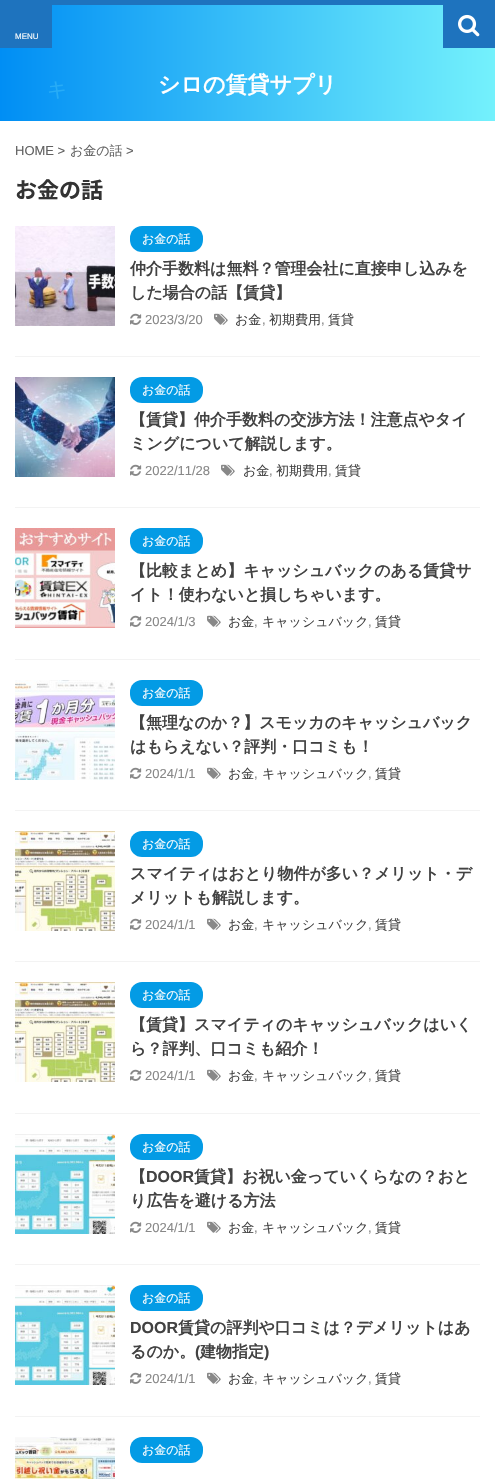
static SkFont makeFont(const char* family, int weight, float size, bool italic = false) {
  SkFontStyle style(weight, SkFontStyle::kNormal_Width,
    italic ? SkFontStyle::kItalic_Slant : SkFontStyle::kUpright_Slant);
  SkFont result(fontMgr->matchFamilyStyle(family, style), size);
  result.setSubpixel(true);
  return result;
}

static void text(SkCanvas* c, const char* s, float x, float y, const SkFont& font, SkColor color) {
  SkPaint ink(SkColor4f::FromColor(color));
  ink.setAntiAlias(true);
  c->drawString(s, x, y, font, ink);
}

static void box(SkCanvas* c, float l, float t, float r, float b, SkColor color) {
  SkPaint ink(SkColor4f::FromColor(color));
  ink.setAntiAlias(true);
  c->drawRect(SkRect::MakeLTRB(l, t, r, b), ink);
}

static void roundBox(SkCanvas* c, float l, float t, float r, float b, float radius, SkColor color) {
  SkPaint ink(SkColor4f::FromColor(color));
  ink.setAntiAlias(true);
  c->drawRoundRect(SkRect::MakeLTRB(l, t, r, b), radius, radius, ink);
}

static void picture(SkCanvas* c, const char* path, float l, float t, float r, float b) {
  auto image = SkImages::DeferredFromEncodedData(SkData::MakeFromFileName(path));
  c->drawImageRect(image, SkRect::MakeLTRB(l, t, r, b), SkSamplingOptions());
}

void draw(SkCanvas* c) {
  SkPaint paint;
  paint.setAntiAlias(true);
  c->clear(0xff1e73be);
  {
    const SkColor colors[] = {0xff74f1fc, 0xff008ef4};
    const float stops[] = {0, 1};
    const SkPoint ends[] = {{495, 63}, {0, 63}};
    paint.setShader(SkGradientShader::MakeLinear(ends, colors, stops, 2, SkTileMode::kClamp));
    paint.setAlpha(255);
  }
  c->drawRect(SkRect::MakeLTRB(0, 5, 495, 121), paint);
  box(c, 0, 5, 52, 48, 0xff1e73be);
  SkFont face1 = makeFont("Liberation Sans", 400, 8);
  text(c, "MENU", 15, 39, face1, 0xffffffff);
  box(c, 443, 5, 495, 48, 0xff1e73be);
  picture(c, "img_01.png", 458, 14, 480, 37);
  SkFont face2 = makeFont("WenQuanYi Zen Hei", 500, 20);
  text(c, "キ", 47, 96, face2, 0xff27acf7);
  SkFont face3 = makeFont("WenQuanYi Zen Hei", 700, 22);
  text(c, "シロの賃貸サプリ", 158, 92, face3, 0xffffffff);
  box(c, 0, 121, 495, 1479, 0xffffffff);
  SkFont face4 = makeFont("Liberation Sans", 400, 13);
  text(c, "HOME >", 15, 155, face4, 0xff616161);
  SkFont face5 = makeFont("WenQuanYi Zen Hei", 500, 13);
  text(c, "お金の話", 70, 155, face5, 0xff616161);
  text(c, ">", 126, 155, face4, 0xff616161);
  SkFont face6 = makeFont("Noto Sans JP", 700, 22);
  text(c, "お金の話", 15, 198, face6, 0xff333333);
  box(c, 15, 356, 480, 357, 0xfff3f3f3);
  picture(c, "img_02.png", 15, 226, 115, 326);
  roundBox(c, 130, 226, 203, 252, 12, 0xff039be5);
  SkFont face7 = makeFont("WenQuanYi Zen Hei", 500, 12);
  text(c, "お金の話", 142, 243, face7, 0xffffffff);
  SkFont face8 = makeFont("WenQuanYi Zen Hei", 700, 16);
  text(c, "仲介手数料は無料？管理会社に直接申し込みを", 130, 274, face8, 0xff424242);
  text(c, "した場合の話【賃貸】", 130, 298, face8, 0xff424242);
  picture(c, "img_03.png", 130, 313, 142, 325);
  text(c, "2023/3/20", 145, 324, face4, 0xff888888);
  picture(c, "img_04.png", 214, 313, 228, 325);
  text(c, "お金", 235, 324, face5, 0xff424242);
  text(c, ",", 262, 324, face4, 0xff888888);
  text(c, "初期費用", 269, 324, face5, 0xff424242);
  text(c, ",", 321, 324, face4, 0xff888888);
  text(c, "賃貸", 328, 324, face5, 0xff424242);
  box(c, 15, 507, 480, 508, 0xfff3f3f3);
  picture(c, "img_05.png", 15, 377, 115, 477);
  roundBox(c, 130, 377, 203, 403, 12, 0xff039be5);
  text(c, "お金の話", 142, 394, face7, 0xffffffff);
  text(c, "【賃貸】仲介手数料の交渉方法！注意点やタイ", 130, 425, face8, 0xff424242);
  text(c, "ミングについて解説します。", 130, 449, face8, 0xff424242);
  picture(c, "img_03.png", 130, 464, 142, 476);
  text(c, "2022/11/28", 145, 475, face4, 0xff888888);
  picture(c, "img_04.png", 221, 464, 235, 476);
  text(c, "お金", 243, 475, face5, 0xff424242);
  text(c, ",", 269, 475, face4, 0xff888888);
  text(c, "初期費用", 276, 475, face5, 0xff424242);
  text(c, ",", 328, 475, face4, 0xff888888);
  text(c, "賃貸", 335, 475, face5, 0xff424242);
  box(c, 15, 659, 480, 660, 0xfff3f3f3);
  picture(c, "img_06.png", 15, 528, 115, 628);
  roundBox(c, 130, 528, 203, 554, 12, 0xff039be5);
  text(c, "お金の話", 142, 545, face7, 0xffffffff);
  text(c, "【比較まとめ】キャッシュバックのある賃貸サ", 130, 576, face8, 0xff424242);
  text(c, "イト！使わないと損しちゃいます。", 130, 600, face8, 0xff424242);
  picture(c, "img_03.png", 130, 615, 142, 627);
  text(c, "2024/1/3", 145, 626, face4, 0xff888888);
  picture(c, "img_04.png", 207, 615, 221, 627);
  text(c, "お金", 228, 626, face5, 0xff424242);
  text(c, ",", 254, 626, face4, 0xff888888);
  text(c, "キャッシュバック", 262, 626, face5, 0xff424242);
  text(c, ",", 368, 626, face4, 0xff888888);
  text(c, "賃貸", 375, 626, face5, 0xff424242);
  box(c, 15, 810, 480, 811, 0xfff3f3f3);
  picture(c, "img_07.png", 15, 680, 115, 780);
  roundBox(c, 130, 680, 203, 706, 12, 0xff039be5);
  text(c, "お金の話", 142, 697, face7, 0xffffffff);
  text(c, "【無理なのか？】スモッカのキャッシュバック", 130, 728, face8, 0xff424242);
  text(c, "はもらえない？評判・口コミも！", 130, 752, face8, 0xff424242);
  picture(c, "img_03.png", 130, 767, 142, 779);
  text(c, "2024/1/1", 145, 778, face4, 0xff888888);
  picture(c, "img_04.png", 207, 767, 221, 779);
  text(c, "お金", 228, 778, face5, 0xff424242);
  text(c, ",", 254, 778, face4, 0xff888888);
  text(c, "キャッシュバック", 262, 778, face5, 0xff424242);
  text(c, ",", 368, 778, face4, 0xff888888);
  text(c, "賃貸", 375, 778, face5, 0xff424242);
  box(c, 15, 961, 480, 962, 0xfff3f3f3);
  picture(c, "img_08.png", 15, 831, 115, 931);
  roundBox(c, 130, 831, 203, 857, 12, 0xff039be5);
  text(c, "お金の話", 142, 848, face7, 0xffffffff);
  text(c, "スマイティはおとり物件が多い？メリット・デ", 130, 879, face8, 0xff424242);
  text(c, "メリットも解説します。", 130, 903, face8, 0xff424242);
  picture(c, "img_03.png", 130, 918, 142, 930);
  text(c, "2024/1/1", 145, 929, face4, 0xff888888);
  picture(c, "img_04.png", 207, 918, 221, 930);
  text(c, "お金", 228, 929, face5, 0xff424242);
  text(c, ",", 254, 929, face4, 0xff888888);
  text(c, "キャッシュバック", 262, 929, face5, 0xff424242);
  text(c, ",", 368, 929, face4, 0xff888888);
  text(c, "賃貸", 375, 929, face5, 0xff424242);
  box(c, 15, 1113, 480, 1114, 0xfff3f3f3);
  picture(c, "img_08.png", 15, 982, 115, 1082);
  roundBox(c, 130, 982, 203, 1008, 12, 0xff039be5);
  text(c, "お金の話", 142, 999, face7, 0xffffffff);
  text(c, "【賃貸】スマイティのキャッシュバックはいく", 130, 1030, face8, 0xff424242);
  text(c, "ら？評判、口コミも紹介！", 130, 1054, face8, 0xff424242);
  picture(c, "img_03.png", 130, 1069, 142, 1081);
  text(c, "2024/1/1", 145, 1080, face4, 0xff888888);
  picture(c, "img_04.png", 207, 1069, 221, 1081);
  text(c, "お金", 228, 1080, face5, 0xff424242);
  text(c, ",", 254, 1080, face4, 0xff888888);
  text(c, "キャッシュバック", 262, 1080, face5, 0xff424242);
  text(c, ",", 368, 1080, face4, 0xff888888);
  text(c, "賃貸", 375, 1080, face5, 0xff424242);
  box(c, 15, 1264, 480, 1265, 0xfff3f3f3);
  picture(c, "img_09.png", 15, 1134, 115, 1234);
  roundBox(c, 130, 1134, 203, 1160, 12, 0xff039be5);
  text(c, "お金の話", 142, 1151, face7, 0xffffffff);
  text(c, "【", 130, 1182, face8, 0xff424242);
  SkFont face9 = makeFont("Liberation Sans", 700, 16);
  text(c, "DOOR", 146, 1182, face9, 0xff424242);
  text(c, "賃貸】お祝い金っていくらなの？おと", 194, 1182, face8, 0xff424242);
  text(c, "り広告を避ける方法", 130, 1206, face8, 0xff424242);
  picture(c, "img_03.png", 130, 1221, 142, 1233);
  text(c, "2024/1/1", 145, 1232, face4, 0xff888888);
  picture(c, "img_04.png", 207, 1221, 221, 1233);
  text(c, "お金", 228, 1232, face5, 0xff424242);
  text(c, ",", 254, 1232, face4, 0xff888888);
  text(c, "キャッシュバック", 262, 1232, face5, 0xff424242);
  text(c, ",", 368, 1232, face4, 0xff888888);
  text(c, "賃貸", 375, 1232, face5, 0xff424242);
  box(c, 15, 1416, 480, 1417, 0xfff3f3f3);
  picture(c, "img_09.png", 15, 1285, 115, 1385);
  roundBox(c, 130, 1285, 203, 1311, 12, 0xff039be5);
  text(c, "お金の話", 142, 1302, face7, 0xffffffff);
  text(c, "DOOR", 130, 1333, face9, 0xff424242);
  text(c, "賃貸の評判や口コミは？デメリットはあ", 178, 1333, face8, 0xff424242);
  text(c, "るのか。", 130, 1357, face8, 0xff424242);
  text(c, "(", 195, 1357, face9, 0xff424242);
  text(c, "建物指定", 200, 1357, face8, 0xff424242);
  text(c, ")", 264, 1357, face9, 0xff424242);
  picture(c, "img_03.png", 130, 1372, 142, 1384);
  text(c, "2024/1/1", 145, 1383, face4, 0xff888888);
  picture(c, "img_04.png", 207, 1372, 221, 1384);
  text(c, "お金", 228, 1383, face5, 0xff424242);
  text(c, ",", 254, 1383, face4, 0xff888888);
  text(c, "キャッシュバック", 262, 1383, face5, 0xff424242);
  text(c, ",", 368, 1383, face4, 0xff888888);
  text(c, "賃貸", 375, 1383, face5, 0xff424242);
  picture(c, "img_10.png", 15, 1437, 115, 1479);
  roundBox(c, 130, 1437, 203, 1463, 12, 0xff039be5);
  text(c, "お金の話", 142, 1454, face7, 0xffffffff);
}
